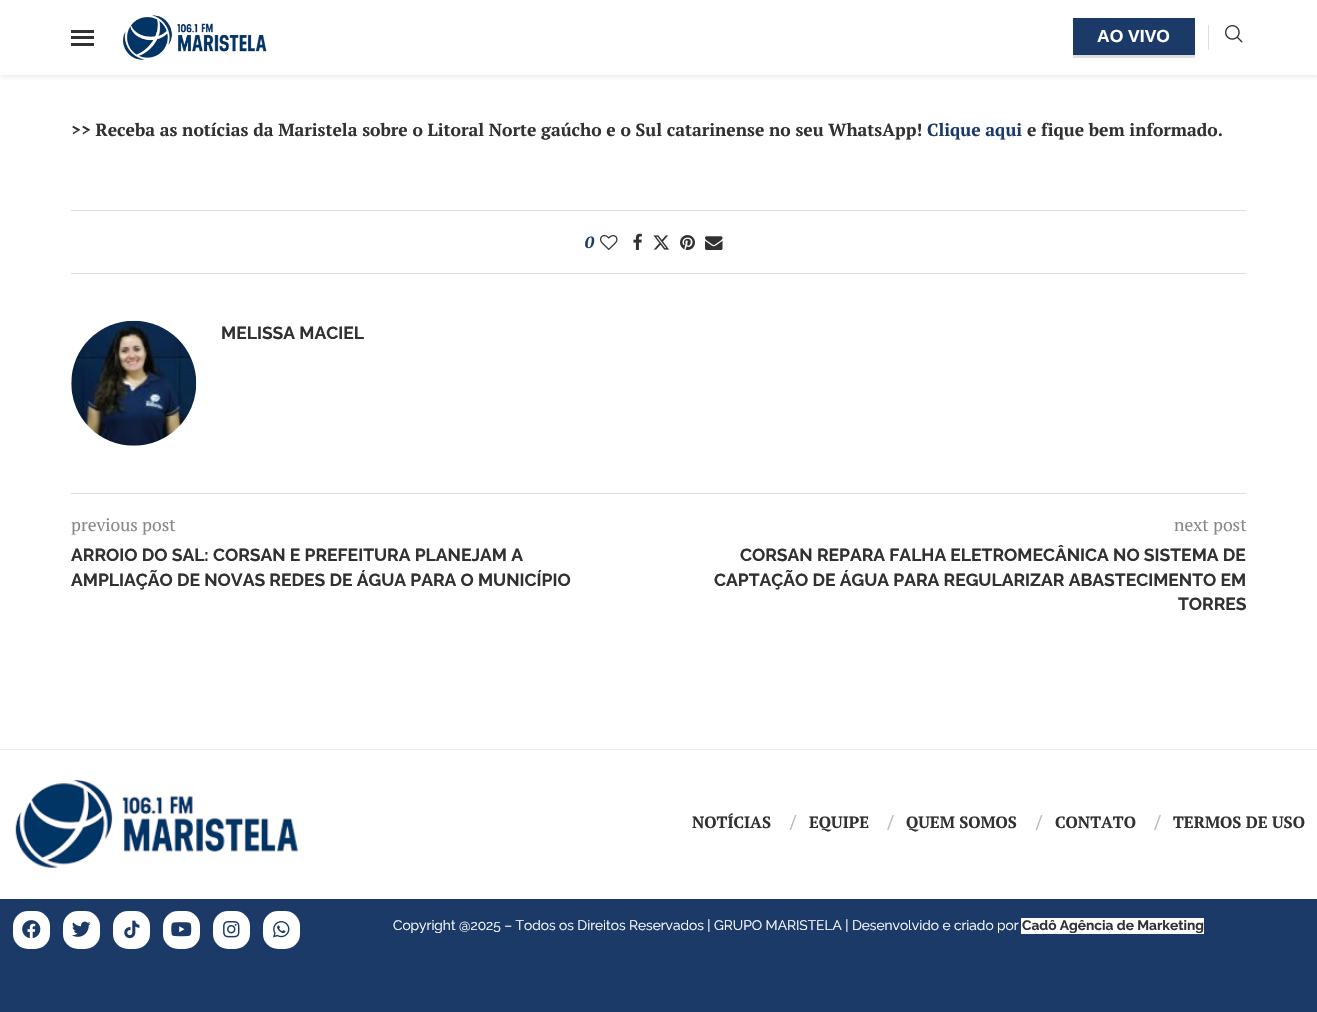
static SkFont makeFont(const char* family, int weight, float size, bool italic = false) {
  SkFontStyle style(weight, SkFontStyle::kNormal_Width,
    italic ? SkFontStyle::kItalic_Slant : SkFontStyle::kUpright_Slant);
  SkFont result(fontMgr->matchFamilyStyle(family, style), size);
  result.setSubpixel(true);
  return result;
}

static void text(SkCanvas* c, const char* s, float x, float y, const SkFont& font, SkColor color) {
  SkPaint ink(SkColor4f::FromColor(color));
  ink.setAntiAlias(true);
  c->drawString(s, x, y, font, ink);
}

static void box(SkCanvas* c, float l, float t, float r, float b, SkColor color) {
  SkPaint ink(SkColor4f::FromColor(color));
  ink.setAntiAlias(true);
  c->drawRect(SkRect::MakeLTRB(l, t, r, b), ink);
}

static void roundBox(SkCanvas* c, float l, float t, float r, float b, float radius, SkColor color) {
  SkPaint ink(SkColor4f::FromColor(color));
  ink.setAntiAlias(true);
  c->drawRoundRect(SkRect::MakeLTRB(l, t, r, b), radius, radius, ink);
}

static void picture(SkCanvas* c, const char* path, float l, float t, float r, float b) {
  auto image = SkImages::DeferredFromEncodedData(SkData::MakeFromFileName(path));
  c->drawImageRect(image, SkRect::MakeLTRB(l, t, r, b), SkSamplingOptions());
}

void draw(SkCanvas* c) {
  SkPaint paint;
  paint.setAntiAlias(true);
  c->clear(0xffffffff);
  c->save();
  c->clipRect(SkRect::MakeLTRB(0, 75, 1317, 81));
  paint.setColor(0x75bebebe);
  paint.setMaskFilter(SkMaskFilter::MakeBlur(kNormal_SkBlurStyle, 3));
  c->drawRect(SkRect::MakeLTRB(0, 1, 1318, 76), paint);
  paint.setMaskFilter(nullptr);
  c->restore();
  box(c, 71, 30, 94, 33, 0xff313131);
  box(c, 71, 43, 94, 46, 0xff313131);
  box(c, 71, 36, 94, 39, 0xff313131);
  picture(c, "img_01.png", 123, 15, 267, 60);
  box(c, 1073, 18, 1195, 55, 0xff1c3a68);
  box(c, 1073, 55, 1195, 58, 0xffdedede);
  SkFont face1 = makeFont("Liberation Sans", 700, 17.5f);
  text(c, "AO VIVO", 1097, 42, face1, 0xffffffff);
  box(c, 1208, 25, 1209, 50, 0xffdedede);
  picture(c, "img_02.png", 1225, 25, 1243, 43);
  SkFont face2 = makeFont("PT Serif", 700, 17.5f);
  text(c, ">> Receba as notícias da Maristela sobre o Litoral Norte gaúcho e o Sul catarinense no seu WhatsApp!", 71, 136, face2, 0xff313131);
  text(c, "Clique aqui", 927, 136, face2, 0xff1c3a68);
  text(c, "e fique bem informado.", 1027, 136, face2, 0xff313131);
  box(c, 71, 210, 1246, 211, 0xffdedede);
  SkFont face3 = makeFont("PT Serif", 700, 16.25f, true);
  text(c, "0", 585, 248, face3, 0xff1c3a68);
  picture(c, "img_03.png", 600, 235, 618, 250);
  picture(c, "img_04.png", 633, 233, 642, 250);
  picture(c, "img_05.png", 653, 235, 669, 250);
  picture(c, "img_06.png", 680, 235, 695, 250);
  picture(c, "img_07.png", 705, 236, 723, 250);
  box(c, 71, 273, 1246, 274, 0xffdedede);
  picture(c, "img_08.png", 71, 320, 197, 446);
  SkFont face4 = makeFont("Raleway", 700, 17.5f);
  text(c, "MELISSA MACIEL", 221, 339, face4, 0xff313131);
  box(c, 71, 493, 1246, 494, 0xffdedede);
  SkFont face5 = makeFont("PT Serif", 400, 17.5f);
  text(c, "previous post", 71, 531, face5, 0xff888888);
  text(c, "ARROIO DO SAL: CORSAN E PREFEITURA PLANEJAM A", 71, 561, face4, 0xff313131);
  text(c, "AMPLIAÇÃO DE NOVAS REDES DE ÁGUA PARA O MUNICÍPIO", 71, 586, face4, 0xff313131);
  text(c, "next post", 1174, 531, face5, 0xff888888);
  text(c, "CORSAN REPARA FALHA ELETROMECÂNICA NO SISTEMA DE", 740, 561, face4, 0xff313131);
  text(c, "CAPTAÇÃO DE ÁGUA PARA REGULARIZAR ABASTECIMENTO EM", 714, 586, face4, 0xff313131);
  text(c, "TORRES", 1178, 610, face4, 0xff313131);
  box(c, 0, 749, 1317, 750, 0xffececec);
  picture(c, "img_09.png", 15, 780, 298, 868);
  SkFont face6 = makeFont("PT Serif", 700, 16.25f);
  text(c, "NOTÍCIAS", 692, 828, face6, 0xff313131);
  paint.setColor(0xffbbbbbb);
  c->drawPath(SkPathBuilder().moveTo(795, 815).lineTo(796.5f, 815).lineTo(791, 830).lineTo(789.5f, 830).close().detach(), paint);
  text(c, "EQUIPE", 809, 828, face6, 0xff313131);
  c->drawPath(SkPathBuilder().moveTo(892.5f, 815).lineTo(894, 815).lineTo(888.5f, 830).lineTo(887, 830).close().detach(), paint);
  text(c, "QUEM SOMOS", 906, 828, face6, 0xff313131);
  c->drawPath(SkPathBuilder().moveTo(1041, 815).lineTo(1042.5f, 815).lineTo(1037, 830).lineTo(1035.5f, 830).close().detach(), paint);
  text(c, "CONTATO", 1055, 828, face6, 0xff313131);
  c->drawPath(SkPathBuilder().moveTo(1159.5f, 815).lineTo(1161, 815).lineTo(1155.5f, 830).lineTo(1154, 830).close().detach(), paint);
  text(c, "TERMOS DE USO", 1173, 828, face6, 0xff313131);
  box(c, 0, 899, 1317, 1012, 0xff1c3a68);
  roundBox(c, 13, 911, 50, 949, 15, 0xffffffff);
  picture(c, "img_10.png", 22, 920, 41, 939);
  roundBox(c, 63, 911, 100, 949, 15, 0xffffffff);
  picture(c, "img_11.png", 72, 921, 91, 937);
  roundBox(c, 113, 911, 150, 949, 15, 0xffffffff);
  picture(c, "img_12.png", 124, 920, 140, 939);
  roundBox(c, 163, 911, 200, 949, 15, 0xffffffff);
  picture(c, "img_13.png", 171, 922, 192, 937);
  roundBox(c, 213, 911, 250, 949, 15, 0xffffffff);
  picture(c, "img_14.png", 223, 921, 240, 938);
  roundBox(c, 263, 911, 300, 949, 15, 0xffffffff);
  picture(c, "img_15.png", 273, 921, 290, 938);
  SkFont face7 = makeFont("Raleway", 400, 13.75f);
  text(c, "Copyright @2025 – Todos os Direitos Reservados | GRUPO MARISTELA | Desenvolvido e criado por", 393, 930, face7, 0xffffffff);
  box(c, 1021, 918, 1204, 934, 0xffffffff);
  SkFont face8 = makeFont("Raleway", 700, 13.75f);
  text(c, "Cadô Agência de Marketing", 1022, 930, face8, 0xff313131);
}
